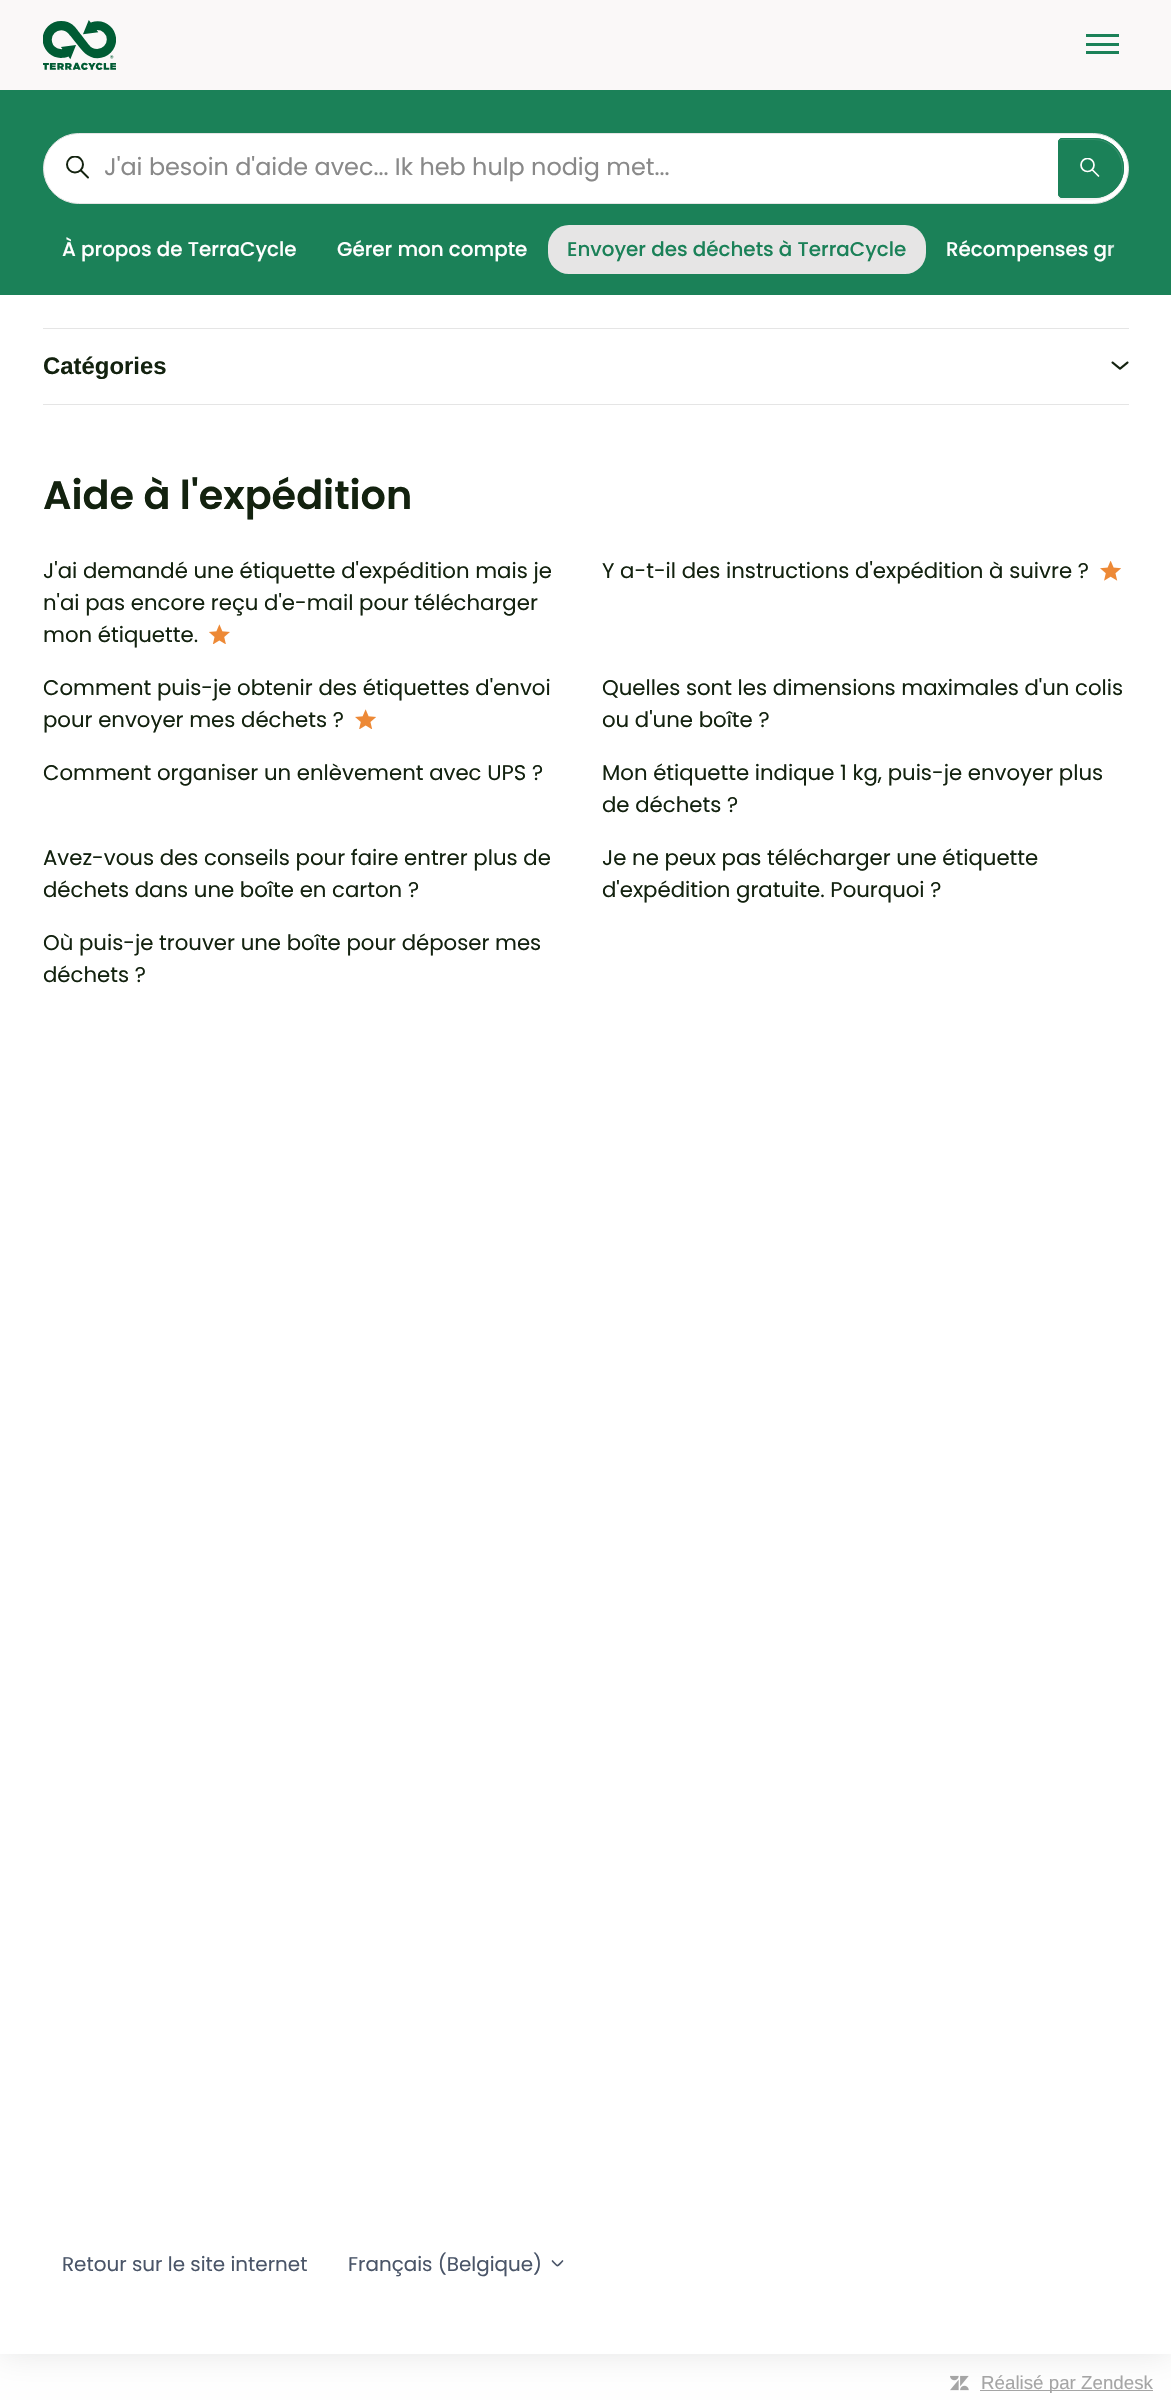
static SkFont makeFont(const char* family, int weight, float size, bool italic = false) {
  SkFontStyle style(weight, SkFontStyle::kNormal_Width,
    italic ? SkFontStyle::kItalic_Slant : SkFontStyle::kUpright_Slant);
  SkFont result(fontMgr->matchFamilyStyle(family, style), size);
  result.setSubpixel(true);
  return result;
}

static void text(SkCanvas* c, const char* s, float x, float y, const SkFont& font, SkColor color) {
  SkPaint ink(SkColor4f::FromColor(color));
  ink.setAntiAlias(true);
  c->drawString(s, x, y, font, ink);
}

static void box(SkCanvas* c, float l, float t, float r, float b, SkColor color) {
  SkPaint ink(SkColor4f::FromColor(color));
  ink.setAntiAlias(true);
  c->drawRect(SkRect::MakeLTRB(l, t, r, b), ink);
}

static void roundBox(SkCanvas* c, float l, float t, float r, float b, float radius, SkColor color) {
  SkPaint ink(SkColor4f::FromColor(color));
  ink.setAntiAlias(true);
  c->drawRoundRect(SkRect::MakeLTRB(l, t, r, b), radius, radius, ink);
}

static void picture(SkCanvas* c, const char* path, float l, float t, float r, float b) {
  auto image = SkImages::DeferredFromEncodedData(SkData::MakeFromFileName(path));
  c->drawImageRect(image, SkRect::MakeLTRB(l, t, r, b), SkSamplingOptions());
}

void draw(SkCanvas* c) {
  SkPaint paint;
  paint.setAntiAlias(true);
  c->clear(0xffffffff);
  box(c, 980, 2390, 1153, 2391, 0xffa5a5a5);
  paint.setColor(0x1a000000);
  paint.setMaskFilter(SkMaskFilter::MakeBlur(kNormal_SkBlurStyle, 15.5f));
  c->drawRect(SkRect::MakeLTRB(0, 0, 1171, 2354), paint);
  paint.setMaskFilter(nullptr);
  box(c, 0, 295, 1171, 2354, 0xffffffff);
  box(c, 0, 0, 1171, 90, 0xfffaf8f8);
  picture(c, "img_01.png", 43, 20, 116, 70);
  box(c, 1086, 43, 1119, 46, 0xff1b8158);
  box(c, 1086, 34, 1119, 37, 0xff1b8158);
  box(c, 1086, 51, 1119, 54, 0xff1b8158);
  box(c, 0, 90, 1171, 295, 0xff1b8158);
  paint.setColor(0xffffffff);
  c->drawRoundRect(SkRect::MakeLTRB(43.5f, 133.5f, 1128.5f, 203.5f), 35, 35, paint);
  paint.setStyle(SkPaint::kStroke_Style);
  paint.setStrokeWidth(1);
  paint.setColor(0xffe5e5e5);
  c->drawRoundRect(SkRect::MakeLTRB(43.5f, 133.5f, 1128.5f, 203.5f), 35, 35, paint);
  c->save();
  c->clipRect(SkRect::MakeLTRB(66, 156, 90, 179));
  paint.setStrokeWidth(2);
  paint.setColor(0xff13220f);
  c->drawCircle(75, 164.5f, 8, paint);
  c->restore();
  paint.setStrokeCap(SkPaint::kRound_Cap);
  c->drawPath(SkPathBuilder().moveTo(88, 177.5f).lineTo(81, 170.5f).detach(), paint);
  SkFont face1 = makeFont("Poppins", 400, 23.9f);
  text(c, "J'ai besoin d'aide avec... Ik heb hulp nodig met...", 104, 175, face1, 0xff898989);
  paint.setStyle(SkPaint::kFill_Style);
  paint.setColor(0xfff2f2f2);
  c->drawPath(SkPathBuilder().moveTo(1058, 196).cubicTo(1058, 201, 1064, 200, 1067, 200).lineTo(1078, 200).cubicTo(1085, 200, 1093, 201, 1100, 199).cubicTo(1115, 196, 1126, 181, 1124, 166).lineTo(1124, 168).cubicTo(1124, 184, 1110, 198, 1094, 198).lineTo(1061, 198).cubicTo(1060, 198, 1059, 197, 1058, 196).close().detach(), paint);
  paint.setColor(0xff1b8158);
  c->drawPath(SkPathBuilder().moveTo(1062, 138).lineTo(1094, 138).cubicTo(1110.5f, 138, 1124, 151.5f, 1124, 168).cubicTo(1124, 184.5f, 1110.5f, 198, 1094, 198).lineTo(1062, 198).cubicTo(1060, 198, 1058, 196, 1058, 194).lineTo(1058, 142).cubicTo(1058, 140, 1060, 138, 1062, 138).close().detach(), paint);
  c->save();
  c->clipRect(SkRect::MakeLTRB(1080, 158, 1100, 178));
  paint.setStyle(SkPaint::kStroke_Style);
  paint.setStrokeWidth(1.7f);
  paint.setStrokeCap(SkPaint::kButt_Cap);
  paint.setColor(0xffffffff);
  c->drawCircle(1087.5f, 165, 6.5f, paint);
  c->restore();
  paint.setStrokeCap(SkPaint::kRound_Cap);
  c->drawPath(SkPathBuilder().moveTo(1098.5f, 176).lineTo(1092.5f, 170).detach(), paint);
  paint.setStyle(SkPaint::kFill_Style);
  paint.setColor(0xff328e69);
  c->drawPath(SkPathBuilder().moveTo(1061, 140).lineTo(1094, 140).cubicTo(1110, 140, 1122, 153, 1122, 169).cubicTo(1122, 173, 1121, 178, 1119, 181).cubicTo(1122, 177, 1123, 172, 1123, 168).cubicTo(1123, 152, 1110, 139, 1094, 139).lineTo(1062, 139).cubicTo(1060, 139, 1059, 140, 1059, 142).cubicTo(1059, 141, 1060, 140, 1061, 140).close().detach(), paint);
  paint.setStyle(SkPaint::kStroke_Style);
  paint.setStrokeWidth(1);
  paint.setStrokeCap(SkPaint::kButt_Cap);
  paint.setColor(0xff1b8158);
  c->drawPath(SkPathBuilder().moveTo(1062, 138.5f).lineTo(1094, 138.5f).cubicTo(1110.5f, 138.5f, 1123.5f, 151.5f, 1123.5f, 168).cubicTo(1123.5f, 184.5f, 1110.5f, 197.5f, 1094, 197.5f).lineTo(1062, 197.5f).cubicTo(1060, 197.5f, 1058.5f, 196, 1058.5f, 194).lineTo(1058.5f, 142).cubicTo(1058.5f, 140, 1060, 138.5f, 1062, 138.5f).close().detach(), paint);
  SkFont face2 = makeFont("Poppins", 500, 19.9f);
  text(c, "À propos de TerraCycle", 62, 256, face2, 0xffffffff);
  text(c, "Gérer mon compte", 337, 256, face2, 0xffffffff);
  roundBox(c, 548, 225, 926, 274, 21, 0xffe6e5e5);
  text(c, "Envoyer des déchets à TerraCycle", 567, 256, face2, 0xff1b8158);
  text(c, "Récompenses gr", 946, 256, face2, 0xffffffff);
  paint.setStyle(SkPaint::kFill_Style);
  {
    const SkColor colors[] = {0x001b8158, 0xff1b8158};
    const float stops[] = {0, 0.95f};
    const SkPoint ends[] = {{1108, 249}, {1129, 249}};
    paint.setShader(SkGradientShader::MakeLinear(ends, colors, stops, 2, SkTileMode::kClamp));
    paint.setAlpha(255);
  }
  c->drawRect(SkRect::MakeLTRB(1109, 244, 1115, 256), paint);
  box(c, 43, 328, 1129, 329, 0xffe5e5e5);
  box(c, 43, 404, 1129, 405, 0xffe5e5e5);
  SkFont face3 = makeFont("Liberation Sans", 700, 23.9f);
  text(c, "Catégories", 43, 374, face3, 0xff13220f);
  picture(c, "img_02.png", 1111, 361, 1129, 370);
  SkFont face4 = makeFont("Poppins", 600, 39.75f);
  text(c, "Aide à l'expédition", 43, 509, face4, 0xff13220f);
  SkFont face5 = makeFont("Poppins", 400, 21.25f);
  text(c, "J'ai demandé une étiquette d'expédition mais je", 43, 578, face5, 0xff13220f);
  text(c, "n'ai pas encore reçu d'e-mail pour télécharger", 43, 610, face5, 0xff13220f);
  text(c, "mon étiquette.", 43, 642, face5, 0xff13220f);
  picture(c, "img_03.png", 209, 624, 230, 644);
  text(c, "Y a-t-il des instructions d'expédition à suivre ?", 602, 578, face5, 0xff13220f);
  picture(c, "img_04.png", 1100, 561, 1121, 581);
  text(c, "Comment puis-je obtenir des étiquettes d'envoi", 43, 695, face5, 0xff13220f);
  text(c, "pour envoyer mes déchets ?", 43, 727, face5, 0xff13220f);
  picture(c, "img_05.png", 355, 709, 376, 729);
  text(c, "Quelles sont les dimensions maximales d'un colis", 602, 695, face5, 0xff13220f);
  text(c, "ou d'une boîte ?", 602, 727, face5, 0xff13220f);
  text(c, "Comment organiser un enlèvement avec UPS ?", 43, 780, face5, 0xff13220f);
  text(c, "Mon étiquette indique 1 kg, puis-je envoyer plus", 602, 780, face5, 0xff13220f);
  text(c, "de déchets ?", 602, 812, face5, 0xff13220f);
  text(c, "Avez-vous des conseils pour faire entrer plus de", 43, 865, face5, 0xff13220f);
  text(c, "déchets dans une boîte en carton ?", 43, 897, face5, 0xff13220f);
  text(c, "Je ne peux pas télécharger une étiquette", 602, 865, face5, 0xff13220f);
  text(c, "d'expédition gratuite. Pourquoi ?", 602, 897, face5, 0xff13220f);
  text(c, "Où puis-je trouver une boîte pour déposer mes", 43, 950, face5, 0xff13220f);
  text(c, "déchets ?", 43, 982, face5, 0xff13220f);
  SkFont face6 = makeFont("Poppins", 400, 19.9f);
  text(c, "Retour sur le site internet", 62, 2271, face6, 0xff4a5568);
  text(c, "Français (Belgique)", 348, 2271, face6, 0xff4a5568);
  paint.setStyle(SkPaint::kStroke_Style);
  paint.setStrokeWidth(1.7f);
  paint.setStrokeCap(SkPaint::kRound_Cap);
  paint.setShader(nullptr);
  paint.setColor(0xff4a5568);
  c->drawPath(SkPathBuilder().moveTo(552.5f, 2261).cubicTo(558.5f, 2267.5f, 556.5f, 2267, 562.5f, 2261).detach(), paint);
  picture(c, "img_06.png", 950, 2375, 969, 2391);
  SkFont face7 = makeFont("Liberation Sans", 400, 18.75f);
  text(c, "Réalisé par Zendesk", 981, 2389, face7, 0xffa5a5a5);
}
